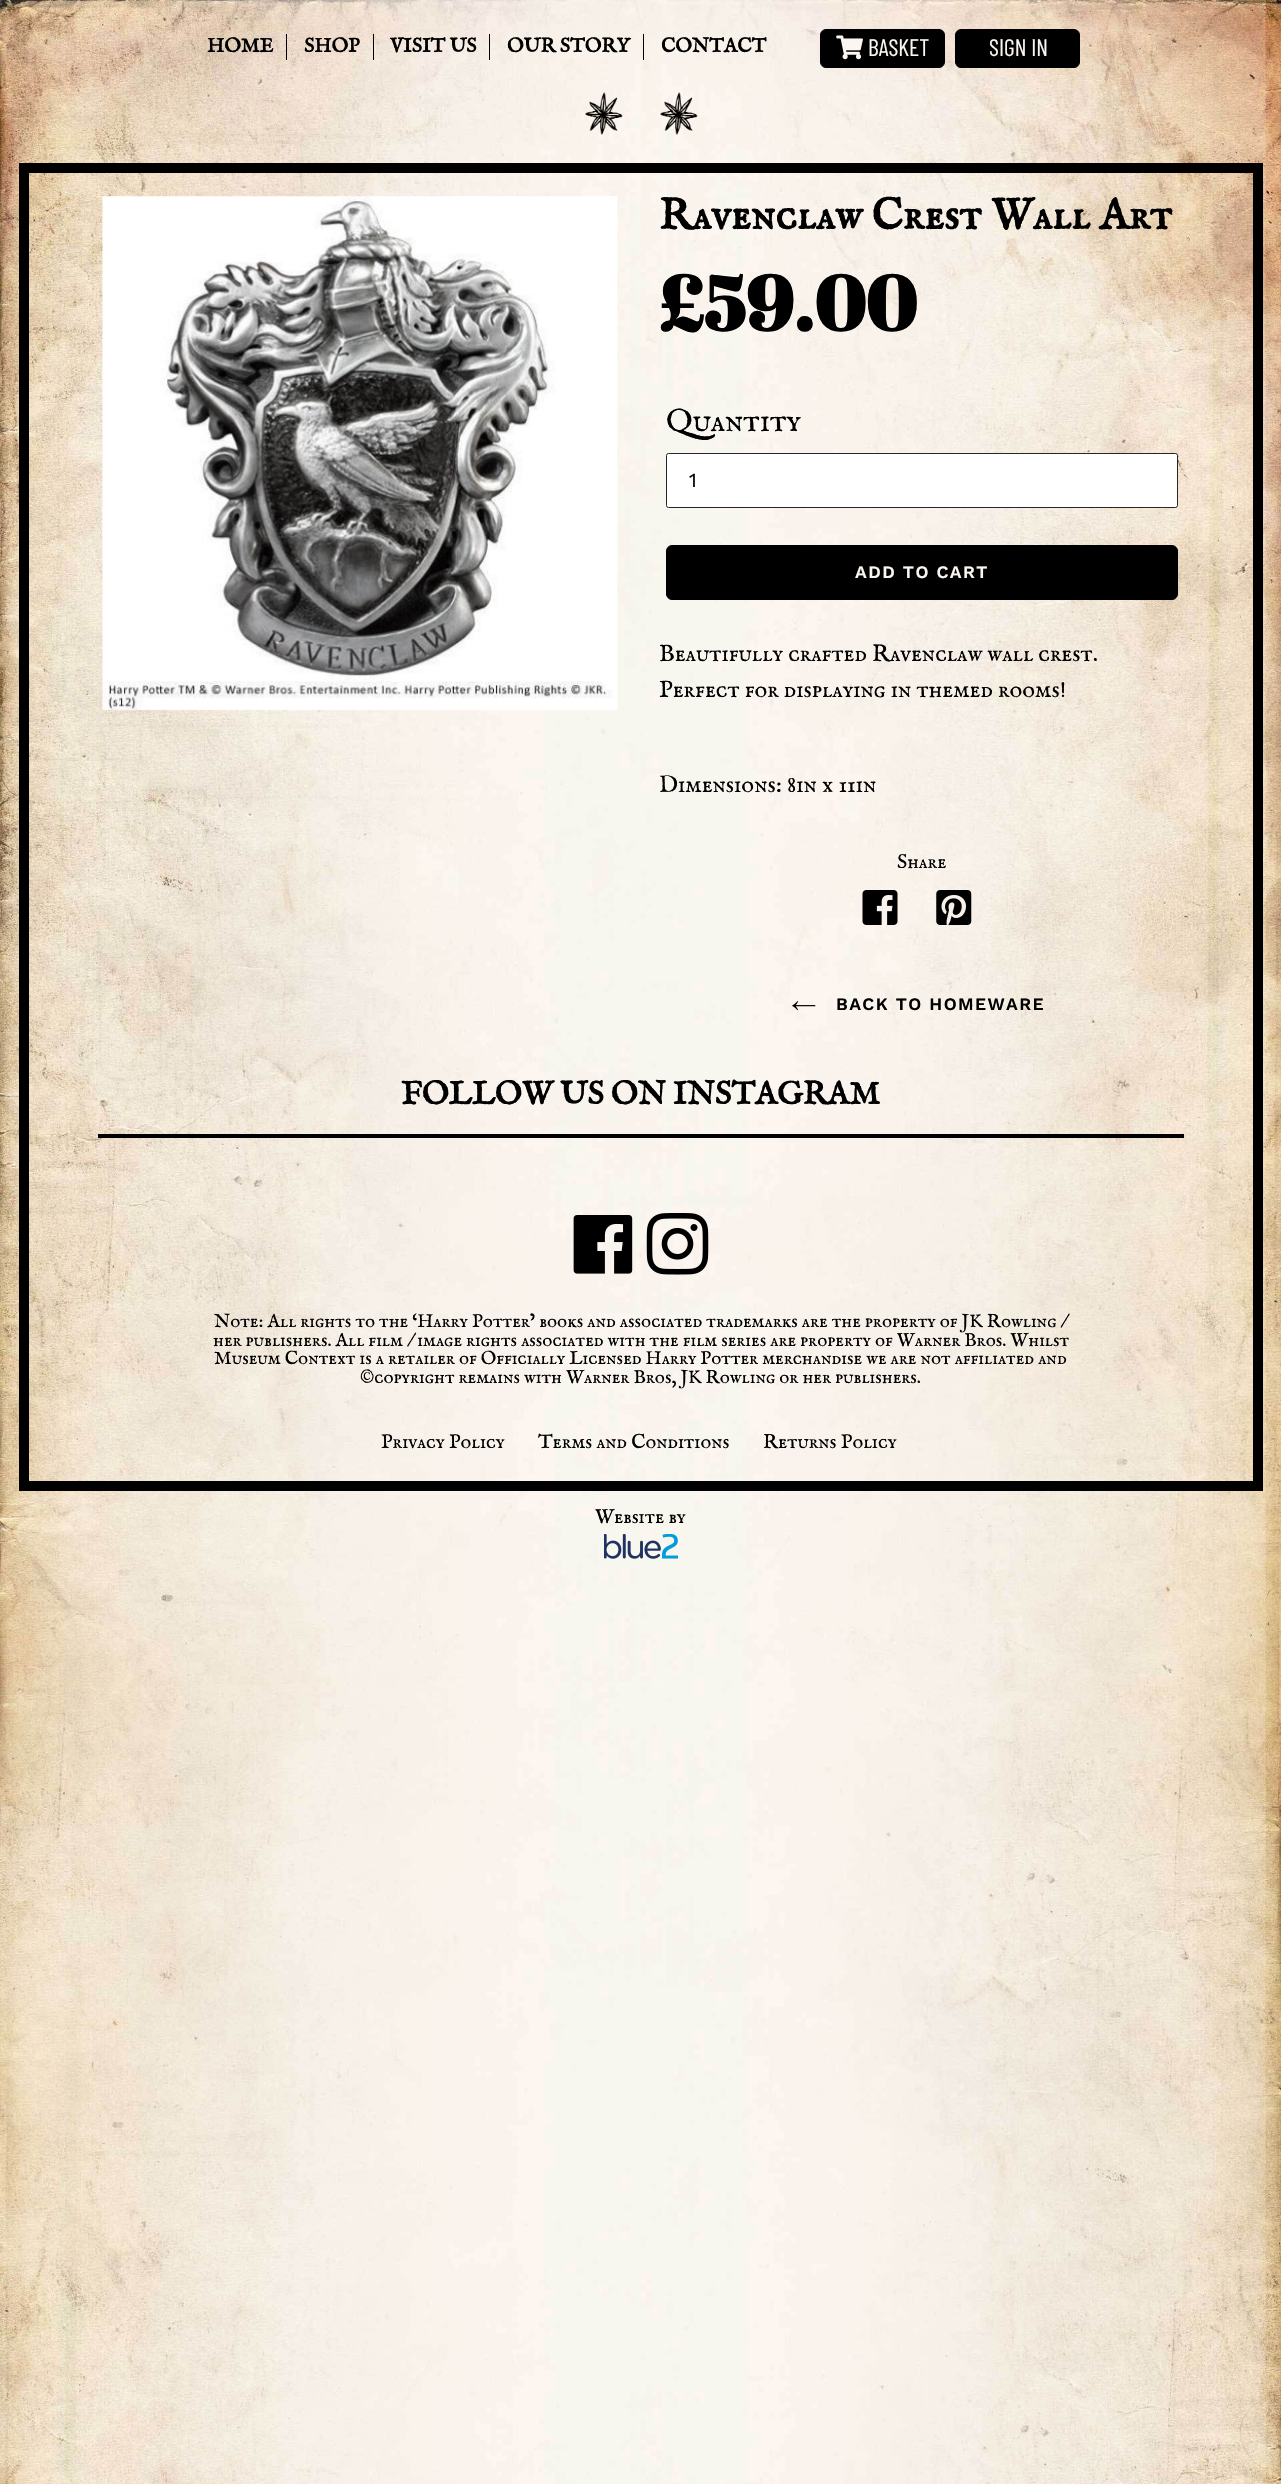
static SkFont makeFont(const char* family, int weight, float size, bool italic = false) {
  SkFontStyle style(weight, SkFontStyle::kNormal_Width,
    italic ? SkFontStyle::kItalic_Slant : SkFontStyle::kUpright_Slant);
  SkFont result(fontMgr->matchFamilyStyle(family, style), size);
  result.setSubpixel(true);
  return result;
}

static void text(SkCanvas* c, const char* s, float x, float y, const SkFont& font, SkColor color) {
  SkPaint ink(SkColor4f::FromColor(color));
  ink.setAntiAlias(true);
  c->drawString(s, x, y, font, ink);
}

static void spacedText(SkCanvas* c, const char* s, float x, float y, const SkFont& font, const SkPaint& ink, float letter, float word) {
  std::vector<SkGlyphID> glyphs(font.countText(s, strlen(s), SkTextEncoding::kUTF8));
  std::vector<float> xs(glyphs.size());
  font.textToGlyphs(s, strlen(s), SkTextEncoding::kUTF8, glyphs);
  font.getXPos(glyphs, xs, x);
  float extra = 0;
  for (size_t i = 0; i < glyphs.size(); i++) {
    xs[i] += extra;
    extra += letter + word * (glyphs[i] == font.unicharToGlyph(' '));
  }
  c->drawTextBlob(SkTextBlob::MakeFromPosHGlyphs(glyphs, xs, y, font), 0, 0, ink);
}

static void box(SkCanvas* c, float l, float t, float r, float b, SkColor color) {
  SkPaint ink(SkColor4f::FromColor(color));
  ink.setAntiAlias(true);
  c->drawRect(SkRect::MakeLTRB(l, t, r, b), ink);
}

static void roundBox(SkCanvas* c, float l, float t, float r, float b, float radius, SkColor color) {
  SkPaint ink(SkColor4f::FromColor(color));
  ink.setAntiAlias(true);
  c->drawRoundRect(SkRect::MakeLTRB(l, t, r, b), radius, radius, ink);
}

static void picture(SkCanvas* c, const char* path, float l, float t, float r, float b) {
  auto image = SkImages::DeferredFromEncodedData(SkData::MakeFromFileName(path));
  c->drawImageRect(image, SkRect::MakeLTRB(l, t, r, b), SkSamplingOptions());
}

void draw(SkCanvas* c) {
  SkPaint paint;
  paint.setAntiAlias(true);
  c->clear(0xffffffff);
  picture(c, "img_01.png", 0, 0, 1281, 2484);
  box(c, 286, 34, 287, 60, 0xff000000);
  SkFont face1 = makeFont("IM FELL English SC", 700, 20);
  text(c, "HOME", 207, 52, face1, 0xff000000);
  box(c, 373, 34, 374, 60, 0xff000000);
  text(c, "SHOP", 304, 52, face1, 0xff000000);
  box(c, 489, 34, 490, 60, 0xff000000);
  text(c, "VISIT US", 390, 52, face1, 0xff000000);
  box(c, 643, 34, 644, 60, 0xff000000);
  text(c, "OUR STORY", 507, 52, face1, 0xff000000);
  text(c, "CONTACT", 661, 52, face1, 0xff000000);
  paint.setColor(0xff000000);
  c->drawRoundRect(SkRect::MakeLTRB(820.5f, 29.5f, 944.5f, 67.5f), 5.5f, 5.5f, paint);
  paint.setStyle(SkPaint::kStroke_Style);
  paint.setStrokeWidth(1);
  c->drawRoundRect(SkRect::MakeLTRB(820.5f, 29.5f, 944.5f, 67.5f), 5.5f, 5.5f, paint);
  picture(c, "img_02.png", 836, 35, 863, 60);
  SkFont face2 = makeFont("Barlow Condensed", 400, 23.75f);
  text(c, "BASKET", 868, 56, face2, 0xfffbf6f1);
  paint.setStyle(SkPaint::kFill_Style);
  c->drawRoundRect(SkRect::MakeLTRB(955.5f, 29.5f, 1079.5f, 67.5f), 5.5f, 5.5f, paint);
  paint.setStyle(SkPaint::kStroke_Style);
  c->drawRoundRect(SkRect::MakeLTRB(955.5f, 29.5f, 1079.5f, 67.5f), 5.5f, 5.5f, paint);
  text(c, "SIGN IN", 989, 56, face2, 0xfffbf6f1);
  picture(c, "img_03.png", 585, 92, 623, 135);
  picture(c, "img_04.png", 660, 92, 698, 135);
  box(c, 29, 163, 1253, 173, 0xff000000);
  box(c, 1253, 163, 1263, 1481, 0xff000000);
  box(c, 19, 163, 29, 1491, 0xff000000);
  picture(c, "img_05.png", 102, 196, 618, 711);
  SkFont face3 = makeFont("IM FELL English SC", 700, 43.75f);
  text(c, "Ravenclaw Crest Wall Art", 659, 229, face3, 0xff000000);
  SkFont face4 = makeFont("Abril Fatface", 700, 77.5f);
  text(c, "£59.00", 659, 331, face4, 0xff000000);
  SkFont face5 = makeFont("IM FELL English SC", 400, 32.5f);
  text(c, "Quantity", 666, 431, face5, 0xff000000);
  roundBox(c, 666, 453, 1178, 508, 2.5f, 0xffffffff);
  paint.setColor(0xd9000000);
  c->drawRoundRect(SkRect::MakeLTRB(666.5f, 453.5f, 1177.5f, 507.5f), 2, 2, paint);
  SkFont face6 = makeFont("Work Sans", 400, 20);
  text(c, "1", 689, 487, face6, 0xff000000);
  paint.setStyle(SkPaint::kFill_Style);
  paint.setColor(0xff000000);
  c->drawRoundRect(SkRect::MakeLTRB(666.5f, 545.5f, 1177.5f, 599.5f), 5.5f, 5.5f, paint);
  paint.setStyle(SkPaint::kStroke_Style);
  c->drawRoundRect(SkRect::MakeLTRB(666.5f, 545.5f, 1177.5f, 599.5f), 5.5f, 5.5f, paint);
  SkFont face7 = makeFont("Work Sans", 600, 17.5f);
  paint.setStyle(SkPaint::kFill_Style);
  paint.setColor(0xfffbf6f1);
  spacedText(c, "ADD TO CART", 855, 578, face7, paint, 1.4f, 0);
  SkFont face8 = makeFont("IM FELL English SC", 400, 23.75f);
  text(c, "Beautifully crafted Ravenclaw wall crest.", 659, 661, face8, 0xff000000);
  text(c, "Perfect for displaying in themed rooms!", 659, 697, face8, 0xff000000);
  text(c, "Dimensions: 8in x 11in", 659, 792, face8, 0xff000000);
  SkFont face9 = makeFont("IM FELL English SC", 400, 20);
  text(c, "Share", 897, 868, face9, 0xff000000);
  picture(c, "img_06.png", 862, 890, 898, 925);
  picture(c, "img_07.png", 936, 890, 972, 925);
  picture(c, "img_08.png", 792, 1001, 816, 1011);
  paint.setColor(0xff000000);
  spacedText(c, "BACK TO HOMEWARE", 836, 1010, face7, paint, 1.4f, 0);
  box(c, 98, 1134, 1184, 1138, 0xff000000);
  SkFont face10 = makeFont("IM FELL English SC", 700, 32.5f);
  text(c, "FOLLOW US ON INSTAGRAM", 401, 1104, face10, 0xff000000);
  box(c, 29, 1481, 1263, 1491, 0xff000000);
  picture(c, "img_09.png", 573, 1215, 633, 1274);
  picture(c, "img_10.png", 646, 1213, 709, 1275);
  SkFont face11 = makeFont("IM FELL English SC", 400, 18.75f);
  text(c, "Note: All rights to the ‘Harry Potter’ books and associated trademarks are the property of JK Rowling /", 214, 1327, face11, 0xff000000);
  text(c, "her publishers. All film / image rights associated with the film series are property of Warner Bros. Whilst", 213, 1346, face11, 0xff000000);
  text(c, "Museum Context is a retailer of Officially Licensed Harry Potter merchandise we are not affiliated and", 214, 1364, face11, 0xff000000);
  text(c, "©copyright remains with Warner Bros, JK Rowling or her publishers.", 360, 1383, face11, 0xff000000);
  text(c, "Privacy Policy", 381, 1448, face9, 0xff000000);
  text(c, "Terms and Conditions", 538, 1448, face9, 0xff000000);
  text(c, "Returns Policy", 763, 1448, face9, 0xff000000);
  text(c, "Website by", 595, 1523, face9, 0xff000000);
  picture(c, "img_11.png", 604, 1534, 678, 1559);
}
